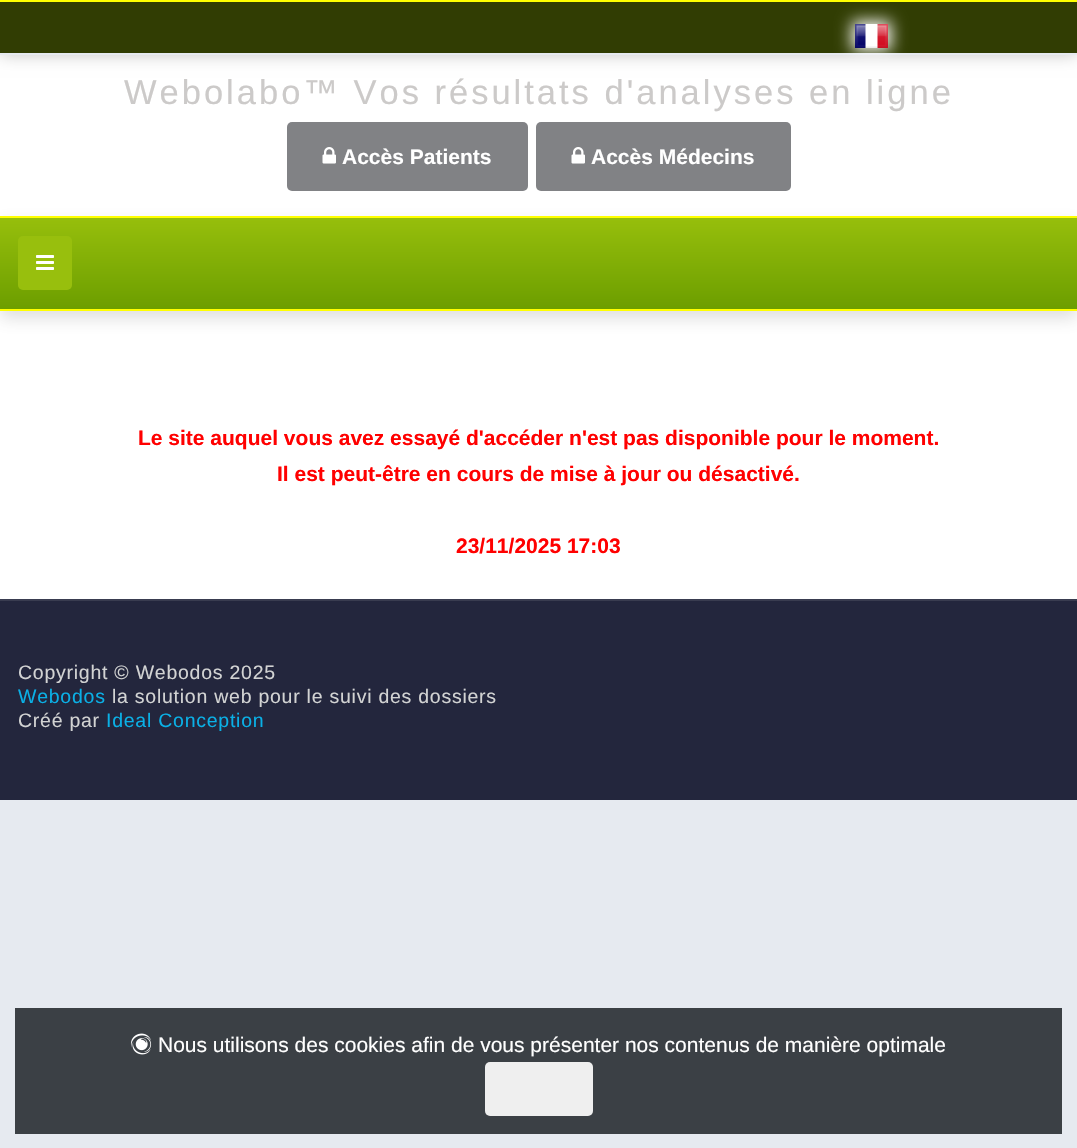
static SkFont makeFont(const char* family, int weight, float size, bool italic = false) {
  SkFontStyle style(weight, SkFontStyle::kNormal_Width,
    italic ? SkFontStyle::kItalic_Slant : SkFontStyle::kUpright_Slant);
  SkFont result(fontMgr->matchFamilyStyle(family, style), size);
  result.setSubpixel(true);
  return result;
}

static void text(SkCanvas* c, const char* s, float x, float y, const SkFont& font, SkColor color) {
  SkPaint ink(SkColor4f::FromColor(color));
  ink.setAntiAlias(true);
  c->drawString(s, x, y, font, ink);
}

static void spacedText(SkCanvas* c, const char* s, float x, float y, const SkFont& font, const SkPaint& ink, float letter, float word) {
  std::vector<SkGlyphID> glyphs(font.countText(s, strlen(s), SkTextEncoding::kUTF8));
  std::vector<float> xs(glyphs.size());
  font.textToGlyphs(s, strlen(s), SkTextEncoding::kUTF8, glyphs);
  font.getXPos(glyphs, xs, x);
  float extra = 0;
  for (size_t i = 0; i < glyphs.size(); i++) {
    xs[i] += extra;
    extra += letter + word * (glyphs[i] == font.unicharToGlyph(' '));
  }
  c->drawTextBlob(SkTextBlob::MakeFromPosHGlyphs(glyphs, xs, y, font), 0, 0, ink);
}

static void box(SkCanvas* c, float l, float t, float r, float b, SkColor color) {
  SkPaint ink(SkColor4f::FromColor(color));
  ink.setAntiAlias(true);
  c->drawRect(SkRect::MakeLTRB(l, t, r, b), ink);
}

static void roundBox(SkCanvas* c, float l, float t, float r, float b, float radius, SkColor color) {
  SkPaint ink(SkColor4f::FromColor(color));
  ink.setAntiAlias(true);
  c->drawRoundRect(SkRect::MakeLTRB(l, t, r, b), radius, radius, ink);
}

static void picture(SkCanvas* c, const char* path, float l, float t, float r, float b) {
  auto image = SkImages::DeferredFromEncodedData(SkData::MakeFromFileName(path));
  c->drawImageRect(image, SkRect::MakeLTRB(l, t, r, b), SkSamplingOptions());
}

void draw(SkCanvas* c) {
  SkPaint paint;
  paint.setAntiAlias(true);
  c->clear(0xffe6eaf0);
  box(c, 0, 55, 1077, 599, 0xffffffff);
  paint.setColor(0xffc1c1c1);
  paint.setMaskFilter(SkMaskFilter::MakeBlur(kNormal_SkBlurStyle, 8));
  c->drawRect(SkRect::MakeLTRB(0, 0, 1077, 54), paint);
  paint.setMaskFilter(nullptr);
  box(c, 0, 2, 1077, 53, 0xff313d03);
  box(c, 0, 0, 1077, 2, 0xffffff00);
  box(c, 0, 53, 1077, 55, 0xffe6eaf0);
  paint.setColor(0xffffffff);
  paint.setMaskFilter(SkMaskFilter::MakeBlur(kNormal_SkBlurStyle, 8));
  c->drawRect(SkRect::MakeLTRB(852, 21, 891, 51), paint);
  paint.setMaskFilter(nullptr);
  picture(c, "img_01.png", 855, 24, 888, 48);
  SkFont face1 = makeFont("Liberation Sans", 400, 34.5f);
  paint.setColor(0xffcccac9);
  spacedText(c, "Webolabo™ Vos résultats d'analyses en ligne", 124, 104, face1, paint, 3, 0);
  roundBox(c, 287, 122, 528, 191, 5, 0xff818285);
  picture(c, "img_02.png", 322, 147, 336, 164);
  SkFont face2 = makeFont("Liberation Sans", 700, 21);
  text(c, "Accès Patients", 342, 164, face2, 0xffffffff);
  roundBox(c, 536, 122, 791, 191, 5, 0xff818285);
  picture(c, "img_02.png", 571, 147, 585, 164);
  text(c, "Accès Médecins", 591, 164, face2, 0xffffffff);
  paint.setColor(0x33555555);
  paint.setMaskFilter(SkMaskFilter::MakeBlur(kNormal_SkBlurStyle, 8));
  c->drawRect(SkRect::MakeLTRB(0, 224, 1077, 318), paint);
  paint.setMaskFilter(nullptr);
  {
    const SkColor colors[] = {0xff97bf0c, 0xff6c9e00};
    const float stops[] = {0, 1};
    const SkPoint ends[] = {{539, 217}, {539, 309}};
    paint.setShader(SkGradientShader::MakeLinear(ends, colors, stops, 2, SkTileMode::kClamp));
    paint.setAlpha(255);
  }
  c->drawRect(SkRect::MakeLTRB(0, 218, 1077, 309), paint);
  box(c, 0, 216, 1077, 218, 0xffffff00);
  box(c, 0, 309, 1077, 311, 0xffffff00);
  roundBox(c, 18, 236, 72, 290, 5, 0xff98bf0d);
  picture(c, "img_03.png", 36, 255, 54, 270);
  text(c, "Le site auquel vous avez essayé d'accéder n'est pas disponible pour le moment.", 138, 445, face2, 0xffff0000);
  text(c, "Il est peut-être en cours de mise à jour ou désactivé.", 277, 481, face2, 0xffff0000);
  text(c, "23/11/2025 17:03", 456, 553, face2, 0xffff0000);
  box(c, 0, 601, 1077, 800, 0xff23263d);
  box(c, 0, 599, 1077, 601, 0xff393c50);
  SkFont face3 = makeFont("Liberation Sans", 400, 19.5f);
  paint.setShader(nullptr);
  paint.setColor(0xffd2d3d3);
  spacedText(c, "Copyright © Webodos 2025", 18, 679, face3, paint, 0.75f, 0);
  paint.setColor(0xff0ab0e6);
  spacedText(c, "Webodos", 18, 703, face3, paint, 0.75f, 0);
  paint.setColor(0xffd2d3d3);
  spacedText(c, "la solution web pour le suivi des dossiers", 112, 703, face3, paint, 0.75f, 0);
  spacedText(c, "Créé par", 18, 727, face3, paint, 0.75f, 0);
  paint.setColor(0xff0ab0e6);
  spacedText(c, "Ideal Conception", 106, 727, face3, paint, 0.75f, 0);
  box(c, 15, 1008, 1062, 1134, 0xff3b4045);
  picture(c, "img_04.png", 130, 1033, 152, 1055);
  SkFont face4 = makeFont("Liberation Sans", 400, 21);
  text(c, "Nous utilisons des cookies afin de vous présenter nos contenus de manière optimale", 158, 1052, face4, 0xffffffff);
  roundBox(c, 485, 1062, 593, 1116, 5, 0xffefefef);
}
